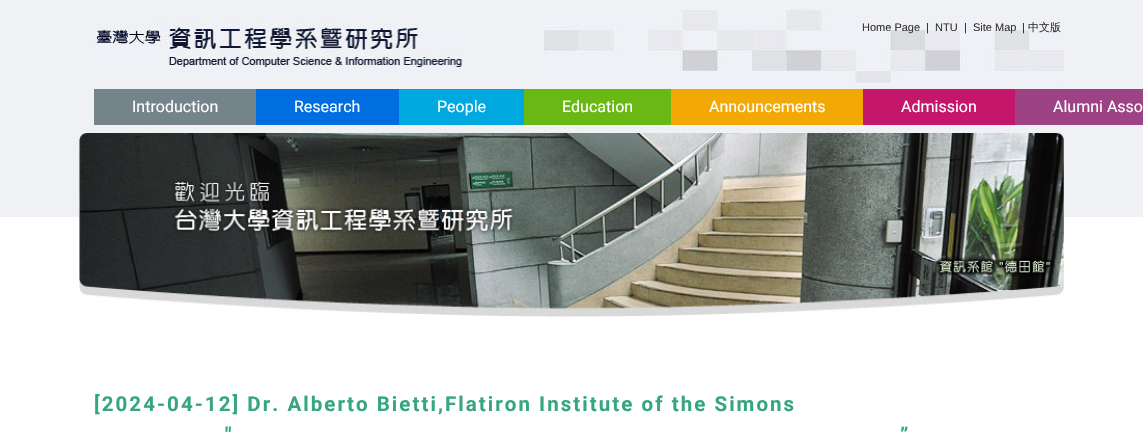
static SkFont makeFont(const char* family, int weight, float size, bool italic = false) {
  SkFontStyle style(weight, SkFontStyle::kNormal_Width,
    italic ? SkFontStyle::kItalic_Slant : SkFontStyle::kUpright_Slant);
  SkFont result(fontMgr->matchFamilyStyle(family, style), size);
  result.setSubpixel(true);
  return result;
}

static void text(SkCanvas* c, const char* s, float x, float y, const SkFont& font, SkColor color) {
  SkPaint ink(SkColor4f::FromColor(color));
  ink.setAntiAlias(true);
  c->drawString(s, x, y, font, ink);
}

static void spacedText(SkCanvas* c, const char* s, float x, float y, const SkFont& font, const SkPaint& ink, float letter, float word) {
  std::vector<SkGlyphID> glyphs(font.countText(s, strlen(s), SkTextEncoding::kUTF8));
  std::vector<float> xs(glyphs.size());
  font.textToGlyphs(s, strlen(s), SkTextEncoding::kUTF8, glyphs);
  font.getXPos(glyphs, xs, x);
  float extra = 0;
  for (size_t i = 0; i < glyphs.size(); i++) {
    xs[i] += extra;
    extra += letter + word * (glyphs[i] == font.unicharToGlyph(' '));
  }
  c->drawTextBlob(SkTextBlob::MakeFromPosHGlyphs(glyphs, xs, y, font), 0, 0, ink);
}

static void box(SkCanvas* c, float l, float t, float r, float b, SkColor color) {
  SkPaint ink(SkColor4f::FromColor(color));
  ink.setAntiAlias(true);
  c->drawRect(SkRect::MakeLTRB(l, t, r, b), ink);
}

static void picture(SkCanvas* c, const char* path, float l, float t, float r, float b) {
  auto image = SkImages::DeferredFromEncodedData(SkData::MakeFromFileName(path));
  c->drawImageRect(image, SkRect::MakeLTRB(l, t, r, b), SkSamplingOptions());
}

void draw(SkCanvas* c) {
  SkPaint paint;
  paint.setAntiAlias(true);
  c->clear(0xffffffff);
  box(c, 0, 0, 1143, 217, 0xffeff1f5);
  picture(c, "img_01.png", 542, 8, 1064, 84);
  picture(c, "img_02.png", 95, 23, 463, 71);
  SkFont face1 = makeFont("Liberation Sans", 400, 11);
  text(c, "Home Page", 862, 31, face1, 0xff333333);
  text(c, "|", 926, 31, face1, 0xff272727);
  text(c, "NTU", 935, 31, face1, 0xff333333);
  text(c, "|", 964, 31, face1, 0xff272727);
  text(c, "Site Map", 973, 31, face1, 0xff333333);
  text(c, "|", 1022, 31, face1, 0xff272727);
  SkFont face2 = makeFont("WenQuanYi Zen Hei", 500, 11);
  text(c, "中文版", 1028, 31, face2, 0xff333333);
  box(c, 94, 89, 256, 125, 0xff75838a);
  SkFont face3 = makeFont("Roboto", 400, 16);
  text(c, "Introduction", 132, 112, face3, 0xffffffff);
  box(c, 256, 89, 399, 125, 0xff006de0);
  text(c, "Research", 294, 112, face3, 0xffffffff);
  box(c, 399, 89, 524, 125, 0xff00a8e0);
  text(c, "People", 437, 112, face3, 0xffffffff);
  box(c, 524, 89, 671, 125, 0xff6ab814);
  text(c, "Education", 562, 112, face3, 0xffffffff);
  box(c, 671, 89, 863, 125, 0xfff2a905);
  text(c, "Announcements", 709, 112, face3, 0xffffffff);
  box(c, 863, 89, 1015, 125, 0xffc4176c);
  text(c, "Admission", 901, 112, face3, 0xffffffff);
  box(c, 1015, 89, 1143, 125, 0xff9e4286);
  text(c, "Alumni Asso", 1053, 112, face3, 0xffffffff);
  picture(c, "img_03.png", 79, 133, 1064, 317);
  SkFont face4 = makeFont("Roboto", 700, 20.5f);
  paint.setColor(0xff35a67f);
  spacedText(c, "[2024-04-12] Dr. Alberto Bietti,Flatiron Institute of the Simons", 94, 411, face4, paint, 2.05f, 0);
  spacedText(c, "\"", 225, 442, face4, paint, 2.05f, 0);
  spacedText(c, "”", 900, 442, face4, paint, 2.05f, 0);
}
